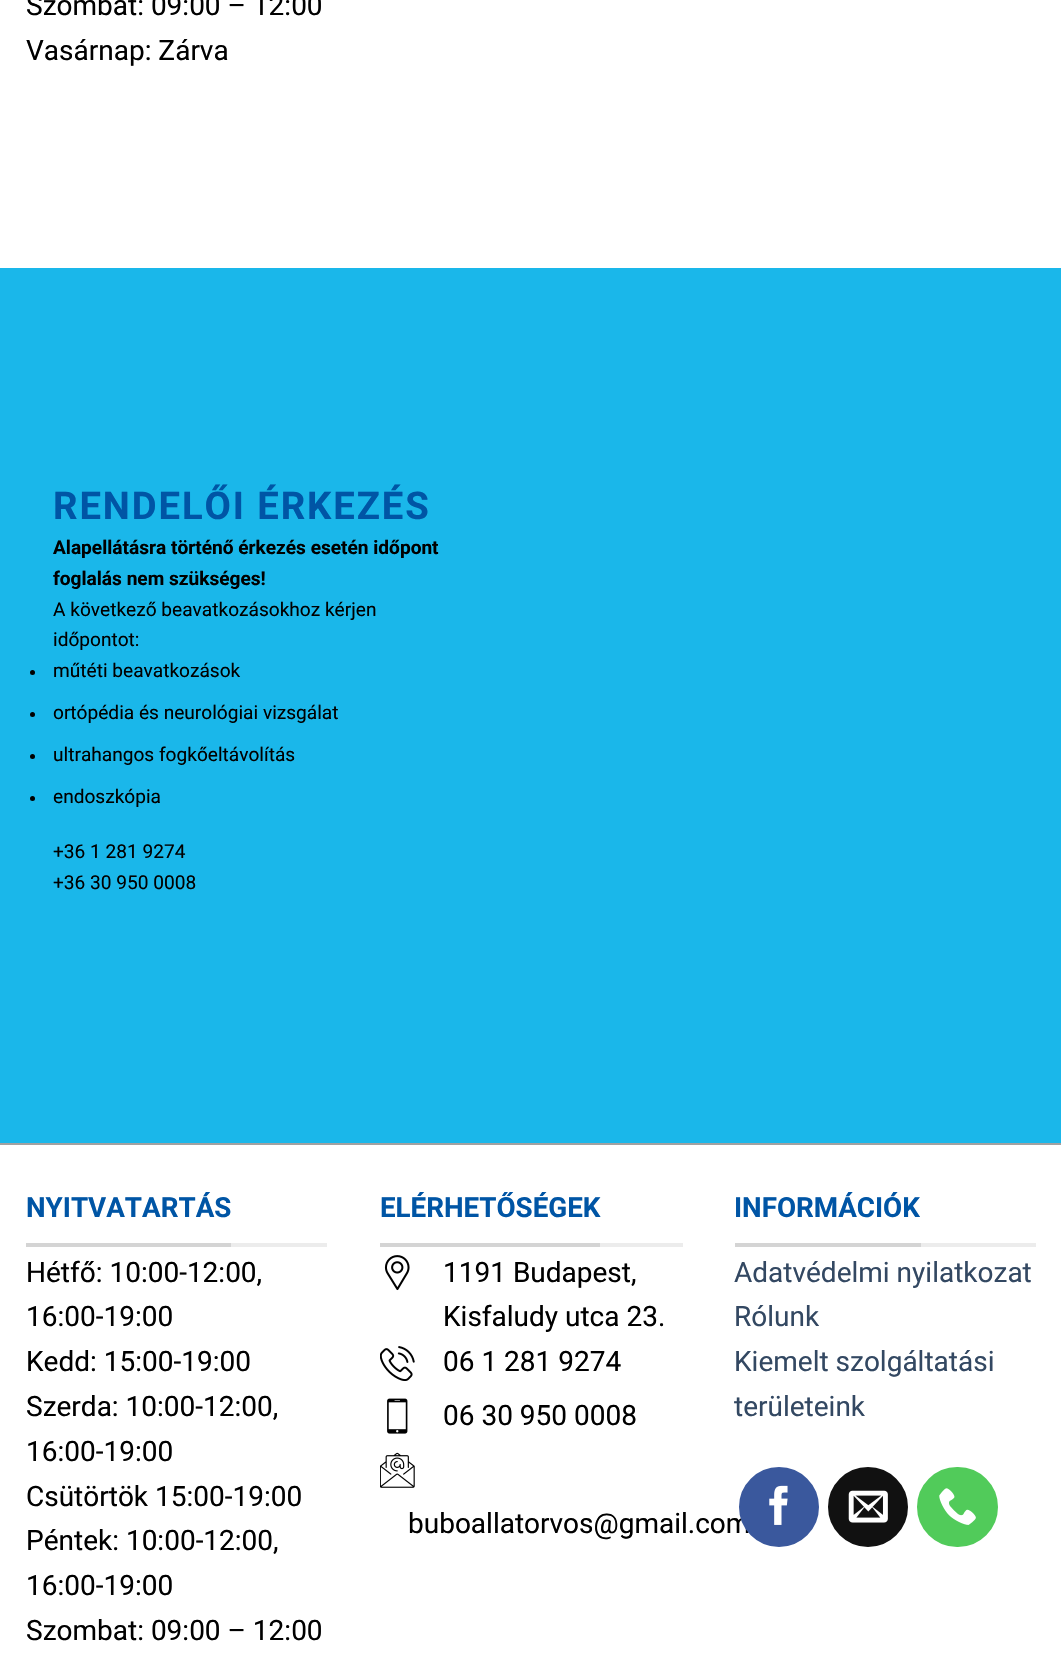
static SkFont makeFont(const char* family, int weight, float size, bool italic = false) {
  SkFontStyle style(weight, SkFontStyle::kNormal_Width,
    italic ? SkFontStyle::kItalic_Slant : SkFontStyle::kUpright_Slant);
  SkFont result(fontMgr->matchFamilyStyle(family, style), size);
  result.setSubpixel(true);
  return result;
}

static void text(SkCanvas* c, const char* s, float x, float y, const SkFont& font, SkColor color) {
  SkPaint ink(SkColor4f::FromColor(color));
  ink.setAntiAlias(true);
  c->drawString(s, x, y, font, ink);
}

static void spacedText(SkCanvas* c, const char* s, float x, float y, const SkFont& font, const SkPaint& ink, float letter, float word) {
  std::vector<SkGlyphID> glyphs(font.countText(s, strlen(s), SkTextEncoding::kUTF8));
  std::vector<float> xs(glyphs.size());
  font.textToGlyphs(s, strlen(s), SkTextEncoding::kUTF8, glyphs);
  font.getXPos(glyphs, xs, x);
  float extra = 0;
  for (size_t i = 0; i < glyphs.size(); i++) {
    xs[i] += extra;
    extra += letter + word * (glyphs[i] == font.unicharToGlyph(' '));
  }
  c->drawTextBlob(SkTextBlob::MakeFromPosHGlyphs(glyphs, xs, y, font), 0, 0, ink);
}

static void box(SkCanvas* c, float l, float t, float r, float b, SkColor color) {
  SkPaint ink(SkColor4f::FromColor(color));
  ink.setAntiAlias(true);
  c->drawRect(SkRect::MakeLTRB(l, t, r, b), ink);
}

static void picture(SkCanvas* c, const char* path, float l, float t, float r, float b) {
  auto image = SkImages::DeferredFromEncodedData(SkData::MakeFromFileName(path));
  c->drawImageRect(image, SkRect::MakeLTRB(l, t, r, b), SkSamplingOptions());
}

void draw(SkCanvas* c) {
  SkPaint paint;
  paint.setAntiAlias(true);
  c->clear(0xffffffff);
  SkFont face1 = makeFont("Roboto", 400, 28);
  text(c, "Szombat: 09:00 – 12:00", 26, 15, face1, 0xff000000);
  text(c, "Vasárnap: Zárva", 26, 60, face1, 0xff000000);
  box(c, 0, 268, 1061, 1143, 0xff1ab7ea);
  SkFont face2 = makeFont("Roboto", 700, 38.25f);
  paint.setColor(0xff0055a5);
  spacedText(c, "RENDELŐI ÉRKEZÉS", 53, 519, face2, paint, 1.9f, 0);
  SkFont face3 = makeFont("Roboto", 700, 19.1f);
  text(c, "Alapellátásra történő érkezés esetén időpont", 53, 554, face3, 0xff000000);
  text(c, "foglalás nem szükséges!", 53, 585, face3, 0xff000000);
  SkFont face4 = makeFont("Roboto", 400, 19.1f);
  text(c, "A következő beavatkozásokhoz kérjen", 53, 616, face4, 0xff000000);
  text(c, "időpontot:", 53, 646, face4, 0xff000000);
  paint.setColor(0xff000000);
  c->drawCircle(32.5f, 672.5f, 2.5f, paint);
  text(c, "műtéti beavatkozások", 53, 677, face4, 0xff000000);
  c->drawCircle(32.5f, 714.5f, 2.5f, paint);
  text(c, "ortópédia és neurológiai vizsgálat", 53, 719, face4, 0xff000000);
  c->drawCircle(32.5f, 756.5f, 2.5f, paint);
  text(c, "ultrahangos fogkőeltávolítás", 53, 761, face4, 0xff000000);
  c->drawCircle(32.5f, 798.5f, 2.5f, paint);
  text(c, "endoszkópia", 53, 803, face4, 0xff000000);
  text(c, "+36 1 281 9274", 53, 858, face4, 0xff000000);
  text(c, "+36 30 950 0008", 53, 889, face4, 0xff000000);
  box(c, 0, 1143, 1061, 1145, 0xffa1a1a1);
  box(c, 231, 1243, 327, 1247, 0xffececec);
  box(c, 26, 1243, 231, 1247, 0xffd4d4d4);
  SkFont face5 = makeFont("Roboto", 700, 27.75f);
  text(c, "NYITVATARTÁS", 26, 1217, face5, 0xff0055a5);
  text(c, "Hétfő: 10:00-12:00,", 26, 1282, face1, 0xff000000);
  text(c, "16:00-19:00", 26, 1326, face1, 0xff000000);
  text(c, "Kedd: 15:00-19:00", 26, 1371, face1, 0xff000000);
  text(c, "Szerda: 10:00-12:00,", 26, 1416, face1, 0xff000000);
  text(c, "16:00-19:00", 26, 1461, face1, 0xff000000);
  text(c, "Csütörtök 15:00-19:00", 26, 1506, face1, 0xff000000);
  text(c, "Péntek: 10:00-12:00,", 26, 1550, face1, 0xff000000);
  text(c, "16:00-19:00", 26, 1595, face1, 0xff000000);
  text(c, "Szombat: 09:00 – 12:00", 26, 1640, face1, 0xff000000);
  box(c, 600, 1243, 683, 1247, 0xffececec);
  box(c, 380, 1243, 600, 1247, 0xffd4d4d4);
  text(c, "ELÉRHETŐSÉGEK", 380, 1217, face5, 0xff0055a5);
  picture(c, "img_01.png", 384, 1255, 410, 1291);
  text(c, "1191 Budapest,", 443, 1282, face1, 0xff000000);
  text(c, "Kisfaludy utca 23.", 443, 1326, face1, 0xff000000);
  picture(c, "img_02.png", 380, 1346, 415, 1381);
  text(c, "06 1 281 9274", 443, 1371, face1, 0xff000000);
  picture(c, "img_03.png", 387, 1398, 408, 1434);
  text(c, "06 30 950 0008", 443, 1425, face1, 0xff000000);
  picture(c, "img_04.png", 380, 1452, 415, 1488);
  text(c, "buboallatorvos@gmail.com", 408, 1533, face1, 0xff000000);
  box(c, 921, 1243, 1036, 1247, 0xffececec);
  box(c, 735, 1243, 921, 1247, 0xffd4d4d4);
  text(c, "INFORMÁCIÓK", 734, 1217, face5, 0xff0055a5);
  text(c, "Adatvédelmi nyilatkozat", 734, 1282, face1, 0xff334862);
  text(c, "Rólunk", 734, 1326, face1, 0xff334862);
  text(c, "Kiemelt szolgáltatási", 734, 1371, face1, 0xff334862);
  text(c, "területeink", 734, 1416, face1, 0xff334862);
  paint.setColor(0xff3a589d);
  c->drawCircle(779, 1507, 39, paint);
  paint.setStyle(SkPaint::kStroke_Style);
  paint.setStrokeWidth(2);
  c->drawCircle(779, 1507, 39, paint);
  picture(c, "img_05.png", 769, 1485, 788, 1525);
  paint.setStyle(SkPaint::kFill_Style);
  paint.setColor(0xff111111);
  c->drawCircle(868, 1507, 39, paint);
  paint.setStyle(SkPaint::kStroke_Style);
  c->drawCircle(868, 1507, 39, paint);
  picture(c, "img_06.png", 848, 1490, 888, 1523);
  paint.setStyle(SkPaint::kFill_Style);
  paint.setColor(0xff51cb5a);
  c->drawRoundRect(SkRect::MakeLTRB(918, 1468, 997, 1546), 39, 39, paint);
  paint.setStyle(SkPaint::kStroke_Style);
  c->drawRoundRect(SkRect::MakeLTRB(918, 1468, 997, 1546), 39, 39, paint);
  picture(c, "img_07.png", 939, 1488, 976, 1525);
}
